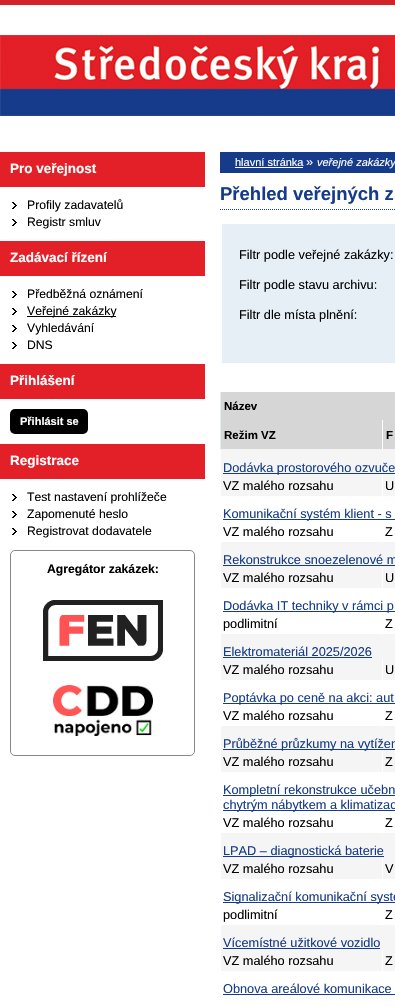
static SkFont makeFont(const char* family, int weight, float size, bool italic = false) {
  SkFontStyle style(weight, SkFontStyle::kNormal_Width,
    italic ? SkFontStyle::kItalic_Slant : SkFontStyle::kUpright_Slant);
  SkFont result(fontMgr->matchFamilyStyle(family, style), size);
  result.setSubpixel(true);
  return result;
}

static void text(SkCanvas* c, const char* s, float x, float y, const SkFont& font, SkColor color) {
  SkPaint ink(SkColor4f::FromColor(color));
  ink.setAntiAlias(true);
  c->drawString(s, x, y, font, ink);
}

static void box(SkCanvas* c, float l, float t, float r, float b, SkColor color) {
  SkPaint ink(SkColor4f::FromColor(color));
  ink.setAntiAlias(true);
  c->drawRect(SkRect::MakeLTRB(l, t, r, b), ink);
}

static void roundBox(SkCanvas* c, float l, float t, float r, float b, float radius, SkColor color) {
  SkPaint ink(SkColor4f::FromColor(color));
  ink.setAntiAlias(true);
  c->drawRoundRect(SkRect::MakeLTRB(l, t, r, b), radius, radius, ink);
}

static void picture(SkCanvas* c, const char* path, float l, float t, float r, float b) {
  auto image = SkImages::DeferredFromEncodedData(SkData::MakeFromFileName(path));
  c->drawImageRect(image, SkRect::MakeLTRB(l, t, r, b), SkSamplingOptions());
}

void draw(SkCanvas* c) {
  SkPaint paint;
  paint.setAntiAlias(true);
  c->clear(0xffffffff);
  box(c, 0, 0, 395, 5, 0xffd2232a);
  picture(c, "img_01.png", 0, 35, 395, 116);
  box(c, 0, 152, 205, 187, 0xffe31f27);
  SkFont face1 = makeFont("Liberation Sans", 700, 13.5f);
  text(c, "Pro veřejnost", 10, 173, face1, 0xffffffff);
  picture(c, "img_02.png", 12, 202, 17, 209);
  SkFont face2 = makeFont("Liberation Sans", 400, 12.2f);
  text(c, "Profily zadavatelů", 27, 209, face2, 0xff000000);
  picture(c, "img_02.png", 12, 219, 17, 226);
  text(c, "Registr smluv", 27, 226, face2, 0xff000000);
  box(c, 0, 241, 205, 276, 0xffe31f27);
  text(c, "Zadávací řízení", 10, 262, face1, 0xffffffff);
  picture(c, "img_02.png", 12, 291, 17, 298);
  text(c, "Předběžná oznámení", 27, 298, face2, 0xff000000);
  picture(c, "img_02.png", 12, 308, 17, 315);
  box(c, 27, 316, 116, 317, 0xff000000);
  text(c, "Veřejné zakázky", 27, 315, face2, 0xff000000);
  picture(c, "img_02.png", 12, 325, 17, 332);
  text(c, "Vyhledávání", 27, 332, face2, 0xff000000);
  picture(c, "img_02.png", 12, 342, 17, 349);
  text(c, "DNS", 27, 349, face2, 0xff000000);
  box(c, 0, 364, 205, 399, 0xffe31f27);
  text(c, "Přihlášení", 10, 385, face1, 0xffffffff);
  roundBox(c, 10, 409, 88, 434, 5, 0xff000000);
  SkFont face3 = makeFont("Liberation Sans", 700, 11);
  text(c, "Přihlásit se", 20, 425, face3, 0xffffffff);
  box(c, 0, 444, 205, 479, 0xffe31f27);
  text(c, "Registrace", 10, 465, face1, 0xffffffff);
  picture(c, "img_02.png", 12, 494, 17, 501);
  text(c, "Test nastavení prohlížeče", 27, 501, face2, 0xff000000);
  picture(c, "img_02.png", 12, 511, 17, 518);
  text(c, "Zapomenuté heslo", 27, 518, face2, 0xff000000);
  picture(c, "img_02.png", 12, 528, 17, 535);
  text(c, "Registrovat dodavatele", 27, 535, face2, 0xff000000);
  paint.setStyle(SkPaint::kStroke_Style);
  paint.setStrokeWidth(1);
  paint.setColor(0xff888888);
  c->drawRoundRect(SkRect::MakeLTRB(10.5f, 550.5f, 194.5f, 755.5f), 4.5f, 4.5f, paint);
  SkFont face4 = makeFont("Liberation Sans", 700, 12.2f);
  text(c, "Agregátor zakázek:", 47, 573, face4, 0xff000000);
  picture(c, "img_03.png", 43, 600, 163, 661);
  picture(c, "img_04.png", 53, 685, 153, 736);
  box(c, 220, 152, 395, 173, 0xff153b8a);
  SkFont face5 = makeFont("Liberation Sans", 400, 11);
  text(c, "hlavní stránka", 235, 166, face5, 0xffffffff);
  box(c, 235, 167, 303, 168, 0xffffffff);
  SkFont face6 = makeFont("Liberation Sans", 400, 12.75f);
  text(c, "»", 306, 166, face6, 0xffffffff);
  SkFont face7 = makeFont("Liberation Sans", 400, 11, true);
  text(c, "veřejné zakázky", 317, 166, face7, 0xffffffff);
  paint.setColor(0xff153b8a);
  paint.setPathEffect(SkDashPathEffect::Make({{1, 1}}, 0));
  c->drawPath(SkPathBuilder().moveTo(220, 209.5f).lineTo(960, 209.5f).detach(), paint);
  paint.setPathEffect(nullptr);
  SkFont face8 = makeFont("Liberation Sans", 700, 18.5f);
  text(c, "Přehled veřejných z", 220, 200, face8, 0xff153b8a);
  box(c, 222, 224, 395, 363, 0xffe5eff5);
  text(c, "Filtr podle veřejné zakázky:", 239, 259, face6, 0xff000000);
  text(c, "Filtr podle stavu archivu:", 239, 289, face6, 0xff000000);
  text(c, "Filtr dle místa plnění:", 239, 319, face6, 0xff000000);
  box(c, 221, 392, 395, 420, 0xffd6d6d6);
  SkFont face9 = makeFont("Liberation Sans", 700, 11.5f);
  text(c, "Název", 224, 410, face9, 0xff000000);
  box(c, 221, 420, 382, 449, 0xffd6d6d6);
  box(c, 221, 449, 395, 496, 0xfff5f5f5);
  box(c, 382, 449, 383, 450, 0xffffffff);
  box(c, 220, 392, 221, 450, 0xffe5eff5);
  text(c, "Režim VZ", 224, 439, face9, 0xff000000);
  box(c, 383, 420, 395, 449, 0xffd6d6d6);
  text(c, "F", 386, 439, face9, 0xff000000);
  box(c, 223, 473, 395, 474, 0xff153b8a);
  text(c, "Dodávka prostorového ozvuče", 223, 472, face6, 0xff153b8a);
  box(c, 382, 475, 383, 497, 0xffffffff);
  text(c, "VZ malého rozsahu", 223, 490, face6, 0xff000000);
  text(c, "U", 385, 490, face6, 0xff000000);
  box(c, 223, 519, 395, 520, 0xff153b8a);
  text(c, "Komunikační systém klient - s", 223, 518, face6, 0xff153b8a);
  box(c, 221, 542, 395, 588, 0xfff5f5f5);
  box(c, 382, 542, 383, 543, 0xffffffff);
  text(c, "VZ malého rozsahu", 223, 536, face6, 0xff000000);
  text(c, "Z", 385, 536, face6, 0xff000000);
  text(c, "Rekonstrukce snoezelenové m", 223, 564, face6, 0xff153b8a);
  box(c, 223, 565, 395, 566, 0xff153b8a);
  box(c, 382, 567, 383, 589, 0xffffffff);
  text(c, "VZ malého rozsahu", 223, 582, face6, 0xff000000);
  text(c, "U", 385, 582, face6, 0xff000000);
  box(c, 223, 611, 395, 612, 0xff153b8a);
  text(c, "Dodávka IT techniky v rámci p", 223, 610, face6, 0xff153b8a);
  box(c, 221, 634, 395, 680, 0xfff5f5f5);
  box(c, 382, 634, 383, 635, 0xffffffff);
  text(c, "podlimitní", 223, 628, face6, 0xff000000);
  text(c, "Z", 385, 628, face6, 0xff000000);
  text(c, "Elektromateriál 2025/2026", 223, 656, face6, 0xff153b8a);
  box(c, 223, 657, 372, 658, 0xff153b8a);
  box(c, 382, 659, 383, 681, 0xffffffff);
  text(c, "VZ malého rozsahu", 223, 674, face6, 0xff000000);
  text(c, "U", 385, 674, face6, 0xff000000);
  box(c, 223, 703, 395, 704, 0xff153b8a);
  text(c, "Poptávka po ceně na akci: aut", 223, 702, face6, 0xff153b8a);
  box(c, 221, 726, 395, 772, 0xfff5f5f5);
  box(c, 382, 726, 383, 727, 0xffffffff);
  text(c, "VZ malého rozsahu", 223, 720, face6, 0xff000000);
  text(c, "Z", 385, 720, face6, 0xff000000);
  box(c, 223, 749, 395, 750, 0xff153b8a);
  text(c, "Průběžné průzkumy na vytížen", 223, 748, face6, 0xff153b8a);
  box(c, 382, 751, 383, 773, 0xffffffff);
  text(c, "VZ malého rozsahu", 223, 766, face6, 0xff000000);
  text(c, "Z", 385, 766, face6, 0xff000000);
  box(c, 223, 795, 395, 796, 0xff153b8a);
  text(c, "Kompletní rekonstrukce učebn", 223, 794, face6, 0xff153b8a);
  box(c, 223, 810, 395, 811, 0xff153b8a);
  text(c, "chytrým nábytkem a klimatizac", 223, 809, face6, 0xff153b8a);
  box(c, 221, 833, 395, 879, 0xfff5f5f5);
  box(c, 382, 833, 383, 834, 0xffffffff);
  text(c, "VZ malého rozsahu", 223, 827, face6, 0xff000000);
  text(c, "Z", 385, 827, face6, 0xff000000);
  box(c, 223, 856, 384, 857, 0xff153b8a);
  text(c, "LPAD – diagnostická baterie", 223, 855, face6, 0xff153b8a);
  box(c, 382, 858, 383, 880, 0xffffffff);
  text(c, "VZ malého rozsahu", 223, 873, face6, 0xff000000);
  text(c, "V", 385, 873, face6, 0xff000000);
  box(c, 223, 902, 395, 903, 0xff153b8a);
  text(c, "Signalizační komunikační systé", 223, 901, face6, 0xff153b8a);
  box(c, 221, 925, 395, 971, 0xfff5f5f5);
  box(c, 382, 925, 383, 926, 0xffffffff);
  text(c, "podlimitní", 223, 919, face6, 0xff000000);
  text(c, "Z", 385, 919, face6, 0xff000000);
  text(c, "Vícemístné užitkové vozidlo", 223, 947, face6, 0xff153b8a);
  box(c, 223, 948, 380, 949, 0xff153b8a);
  box(c, 382, 950, 383, 972, 0xffffffff);
  text(c, "VZ malého rozsahu", 223, 965, face6, 0xff000000);
  text(c, "Z", 385, 965, face6, 0xff000000);
  text(c, "Obnova areálové komunikace", 223, 993, face6, 0xff153b8a);
  box(c, 223, 994, 395, 995, 0xff153b8a);
}
